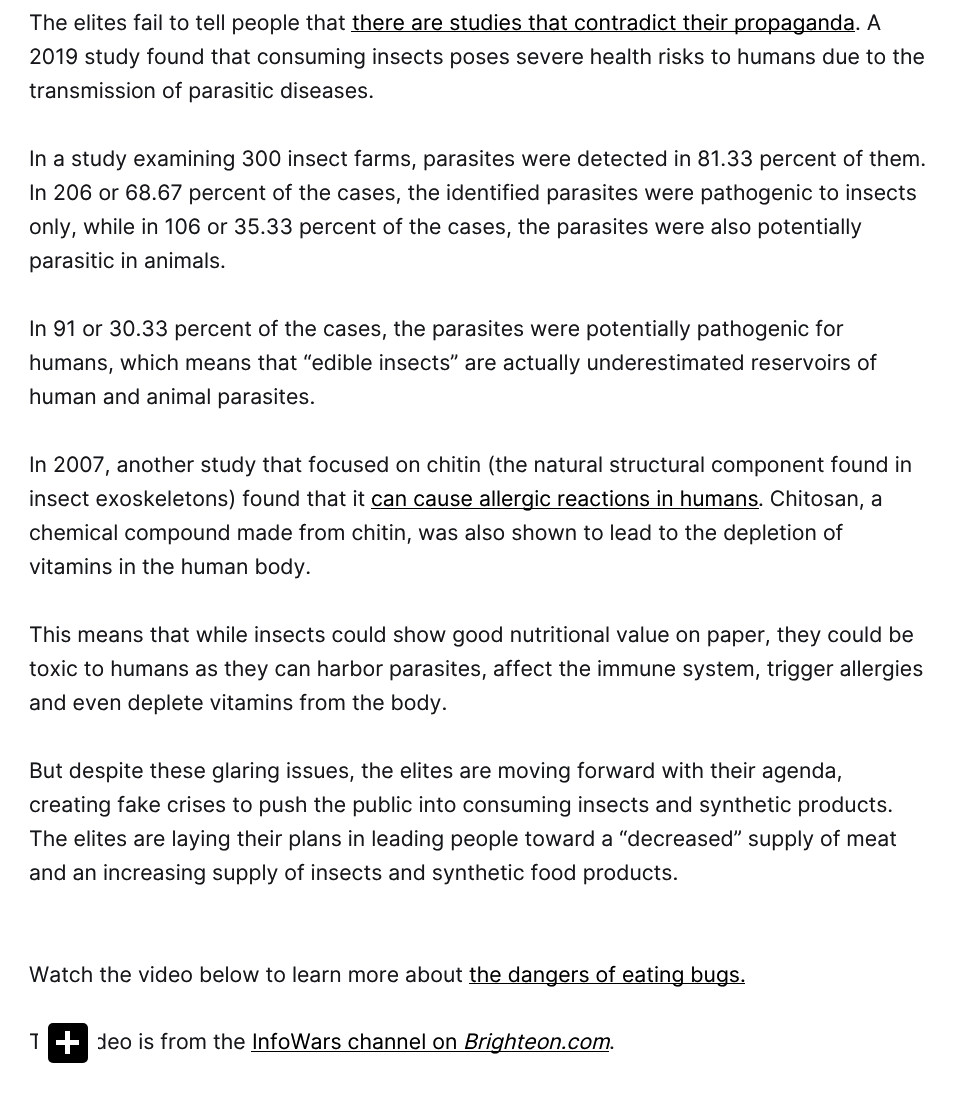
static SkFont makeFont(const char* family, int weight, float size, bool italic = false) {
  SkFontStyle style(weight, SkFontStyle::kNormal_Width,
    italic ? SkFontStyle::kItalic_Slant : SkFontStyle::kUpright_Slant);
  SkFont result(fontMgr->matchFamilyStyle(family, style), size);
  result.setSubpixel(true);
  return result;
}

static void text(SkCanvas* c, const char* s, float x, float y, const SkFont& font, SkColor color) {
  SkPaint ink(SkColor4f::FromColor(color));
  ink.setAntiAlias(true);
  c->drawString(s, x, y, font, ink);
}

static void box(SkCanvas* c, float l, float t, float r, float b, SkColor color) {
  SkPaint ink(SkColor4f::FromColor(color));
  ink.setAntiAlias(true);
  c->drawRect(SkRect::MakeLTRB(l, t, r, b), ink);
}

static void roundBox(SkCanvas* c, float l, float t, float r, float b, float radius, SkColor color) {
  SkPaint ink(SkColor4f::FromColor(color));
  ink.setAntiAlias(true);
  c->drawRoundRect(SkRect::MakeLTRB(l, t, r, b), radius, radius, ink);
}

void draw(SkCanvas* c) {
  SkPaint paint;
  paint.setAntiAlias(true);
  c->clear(0xffffffff);
  SkFont face1 = makeFont("Inter", 400, 21.25f);
  text(c, "The elites fail to tell people that", 29, 30, face1, 0xff15171a);
  box(c, 351, 31, 855, 32, 0xff000000);
  text(c, "there are studies that contradict their propaganda", 352, 30, face1, 0xff000000);
  text(c, ". A", 855, 30, face1, 0xff15171a);
  text(c, "2019 study found that consuming insects poses severe health risks to humans due to the", 29, 64, face1, 0xff15171a);
  text(c, "transmission of parasitic diseases.", 29, 98, face1, 0xff15171a);
  text(c, "In a study examining 300 insect farms, parasites were detected in 81.33 percent of them.", 29, 166, face1, 0xff15171a);
  text(c, "In 206 or 68.67 percent of the cases, the identified parasites were pathogenic to insects", 29, 200, face1, 0xff15171a);
  text(c, "only, while in 106 or 35.33 percent of the cases, the parasites were also potentially", 29, 234, face1, 0xff15171a);
  text(c, "parasitic in animals.", 29, 268, face1, 0xff15171a);
  text(c, "In 91 or 30.33 percent of the cases, the parasites were potentially pathogenic for", 29, 336, face1, 0xff15171a);
  text(c, "humans, which means that “edible insects” are actually underestimated reservoirs of", 29, 370, face1, 0xff15171a);
  text(c, "human and animal parasites.", 29, 404, face1, 0xff15171a);
  text(c, "In 2007, another study that focused on chitin (the natural structural component found in", 29, 472, face1, 0xff15171a);
  text(c, "insect exoskeletons) found that it", 29, 506, face1, 0xff15171a);
  box(c, 371, 508, 759, 509, 0xff000000);
  text(c, "can cause allergic reactions in humans", 371, 506, face1, 0xff000000);
  text(c, ". Chitosan, a", 758, 506, face1, 0xff15171a);
  text(c, "chemical compound made from chitin, was also shown to lead to the depletion of", 29, 540, face1, 0xff15171a);
  text(c, "vitamins in the human body.", 29, 574, face1, 0xff15171a);
  text(c, "This means that while insects could show good nutritional value on paper, they could be", 29, 642, face1, 0xff15171a);
  text(c, "toxic to humans as they can harbor parasites, affect the immune system, trigger allergies", 29, 676, face1, 0xff15171a);
  text(c, "and even deplete vitamins from the body.", 29, 710, face1, 0xff15171a);
  text(c, "But despite these glaring issues, the elites are moving forward with their agenda,", 29, 778, face1, 0xff15171a);
  text(c, "creating fake crises to push the public into consuming insects and synthetic products.", 29, 812, face1, 0xff15171a);
  text(c, "The elites are laying their plans in leading people toward a “decreased” supply of meat", 29, 846, face1, 0xff15171a);
  text(c, "and an increasing supply of insects and synthetic food products.", 29, 880, face1, 0xff15171a);
  text(c, "Watch the video below to learn more about", 29, 982, face1, 0xff15171a);
  box(c, 469, 983, 745, 984, 0xff000000);
  text(c, "the dangers of eating bugs.", 469, 982, face1, 0xff000000);
  text(c, "T", 29, 1049, face1, 0xff15171a);
  text(c, "deo is from the", 94, 1049, face1, 0xff15171a);
  text(c, "InfoWars channel on", 252, 1049, face1, 0xff000000);
  box(c, 251, 1051, 609, 1052, 0xff000000);
  SkFont face2 = makeFont("Inter", 400, 21.25f, true);
  text(c, "Brighteon.com", 463, 1049, face2, 0xff000000);
  text(c, ".", 609, 1049, face1, 0xff15171a);
  roundBox(c, 38, 1013, 98, 1073, 8, 0xffffffff);
  roundBox(c, 48, 1023, 88, 1063, 5, 0xff000000);
  box(c, 65, 1031, 70, 1054, 0xffffffff);
  box(c, 56, 1040, 79, 1045, 0xffffffff);
}
